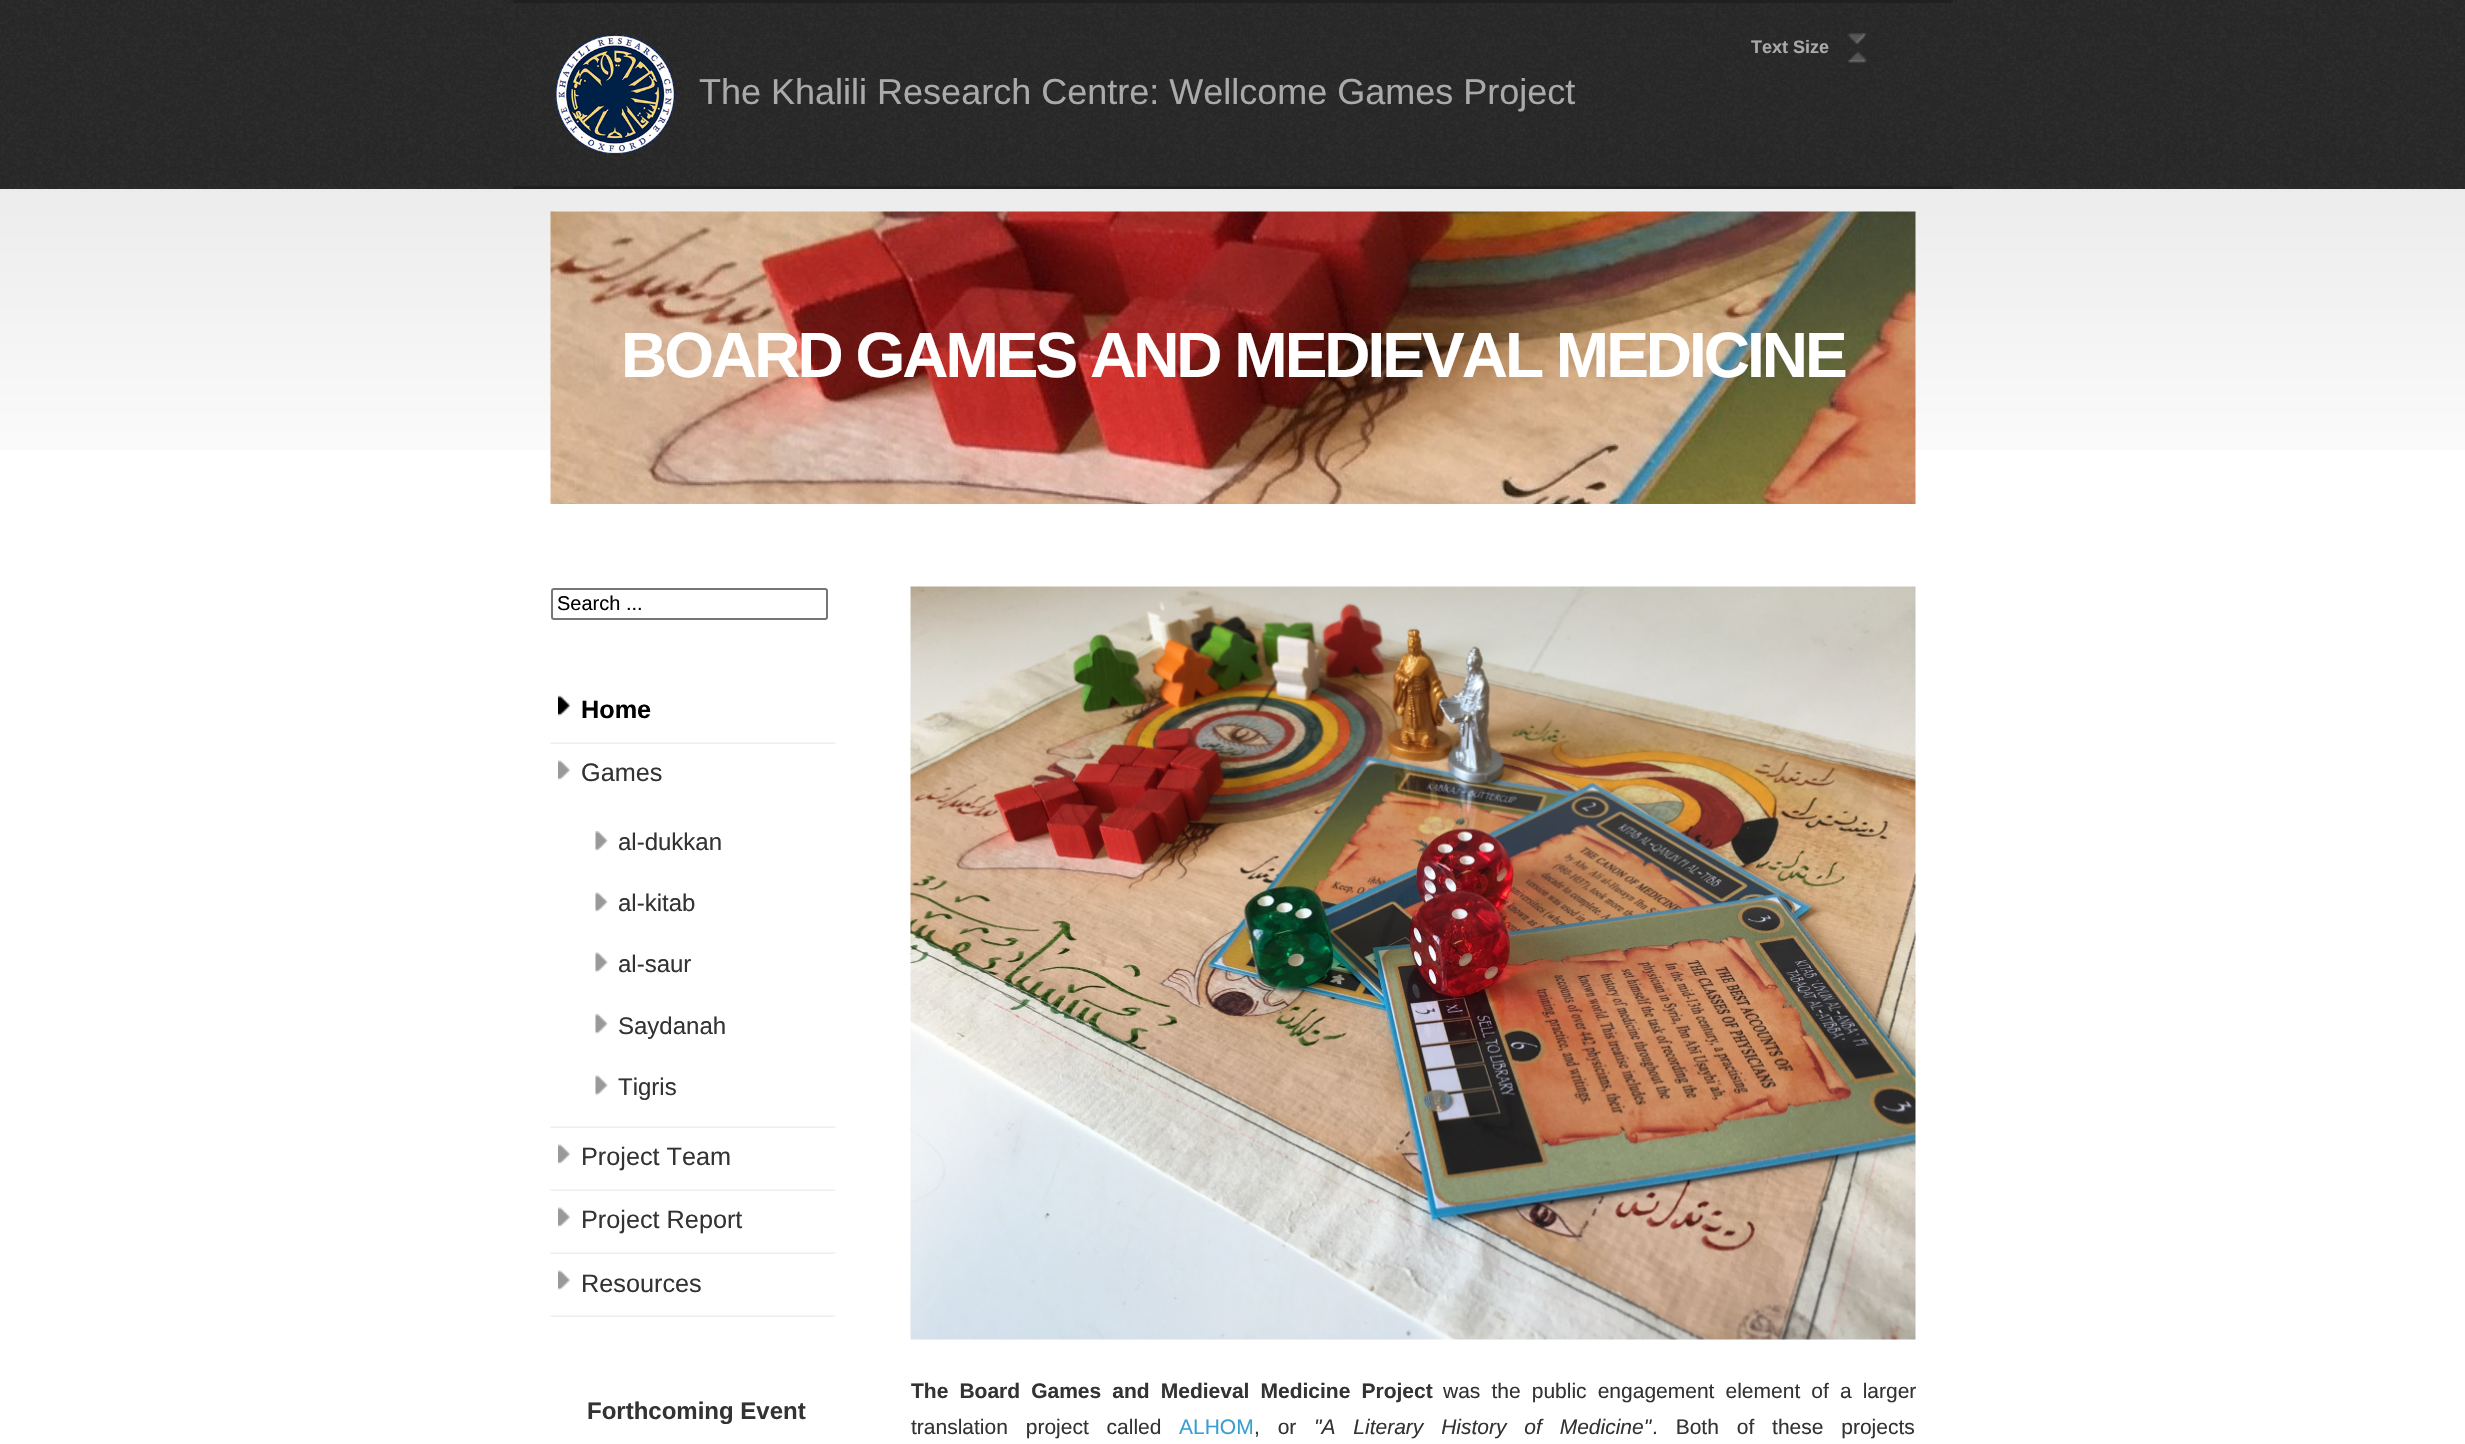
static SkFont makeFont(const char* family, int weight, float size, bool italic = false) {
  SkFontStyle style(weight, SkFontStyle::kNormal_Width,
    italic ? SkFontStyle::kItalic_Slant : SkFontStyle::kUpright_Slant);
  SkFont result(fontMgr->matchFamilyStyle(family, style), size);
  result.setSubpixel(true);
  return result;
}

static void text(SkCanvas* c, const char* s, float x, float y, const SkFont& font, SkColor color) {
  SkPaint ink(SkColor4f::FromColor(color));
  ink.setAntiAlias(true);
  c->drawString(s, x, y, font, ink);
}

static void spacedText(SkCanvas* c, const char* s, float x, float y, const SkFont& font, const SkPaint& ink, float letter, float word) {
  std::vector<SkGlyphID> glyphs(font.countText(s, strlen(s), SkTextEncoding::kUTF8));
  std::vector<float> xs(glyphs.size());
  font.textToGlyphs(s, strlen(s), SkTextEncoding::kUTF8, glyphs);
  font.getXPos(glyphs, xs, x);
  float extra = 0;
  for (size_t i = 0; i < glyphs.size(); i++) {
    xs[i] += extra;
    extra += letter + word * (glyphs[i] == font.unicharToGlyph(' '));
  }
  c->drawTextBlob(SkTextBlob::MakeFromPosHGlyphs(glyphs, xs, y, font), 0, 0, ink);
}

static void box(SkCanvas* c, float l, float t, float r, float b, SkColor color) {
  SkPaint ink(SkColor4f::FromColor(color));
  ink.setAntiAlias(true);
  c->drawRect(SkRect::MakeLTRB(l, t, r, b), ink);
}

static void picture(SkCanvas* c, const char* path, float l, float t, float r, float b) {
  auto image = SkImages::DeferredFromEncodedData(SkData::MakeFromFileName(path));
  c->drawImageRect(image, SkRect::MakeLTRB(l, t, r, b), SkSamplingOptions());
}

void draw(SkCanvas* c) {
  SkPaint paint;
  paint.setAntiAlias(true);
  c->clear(0xffffffff);
  picture(c, "img_01.png", 0, 0, 2465, 189);
  box(c, 513, 186, 1953, 189, 0xff202020);
  box(c, 513, 0, 1953, 3, 0xff202020);
  SkFont face1 = makeFont("Liberation Sans", 700, 18);
  text(c, "Text Size", 1751, 53, face1, 0xffaaaaaa);
  picture(c, "img_02.png", 1847, 33, 1867, 45);
  picture(c, "img_03.png", 1846, 51, 1867, 63);
  picture(c, "img_04.png", 555, 34, 675, 155);
  SkFont face2 = makeFont("Liberation Sans", 400, 36);
  text(c, "The Khalili Research Centre: Wellcome Games Project", 699, 104, face2, 0xffaaaaaa);
  picture(c, "img_05.png", 0, 189, 2465, 450);
  picture(c, "img_06.png", 550, 211, 1916, 504);
  SkFont face3 = makeFont("Liberation Sans", 700, 64);
  paint.setColor(0xffffffff);
  spacedText(c, "BOARD GAMES AND MEDIEVAL MEDICINE", 621, 377, face3, paint, -3, 0);
  paint.setStyle(SkPaint::kStroke_Style);
  paint.setStrokeWidth(2);
  paint.setColor(0xff767676);
  c->drawRoundRect(SkRect::MakeLTRB(552, 589, 827, 619), 2, 2, paint);
  SkFont face4 = makeFont("Liberation Sans", 400, 20);
  text(c, "Search ...", 557, 610, face4, 0xff000000);
  picture(c, "img_07.png", 550, 742, 836, 744);
  picture(c, "img_08.png", 558, 695, 570, 716);
  SkFont face5 = makeFont("Liberation Sans", 700, 25.25f);
  text(c, "Home", 581, 718, face5, 0xff000000);
  picture(c, "img_07.png", 550, 1126, 836, 1128);
  picture(c, "img_09.png", 558, 760, 570, 780);
  SkFont face6 = makeFont("Liberation Sans", 400, 25.25f);
  text(c, "Games", 581, 781, face6, 0xff333333);
  picture(c, "img_10.png", 595, 831, 608, 851);
  SkFont face7 = makeFont("Liberation Sans", 400, 24);
  text(c, "al-dukkan", 618, 850, face7, 0xff333333);
  picture(c, "img_11.png", 595, 892, 608, 912);
  text(c, "al-kitab", 618, 911, face7, 0xff333333);
  picture(c, "img_12.png", 595, 952, 608, 973);
  text(c, "al-saur", 618, 972, face7, 0xff333333);
  picture(c, "img_10.png", 595, 1014, 608, 1034);
  text(c, "Saydanah", 618, 1034, face7, 0xff333333);
  picture(c, "img_12.png", 595, 1075, 608, 1096);
  text(c, "Tigris", 618, 1095, face7, 0xff333333);
  picture(c, "img_07.png", 550, 1189, 836, 1191);
  picture(c, "img_09.png", 558, 1144, 570, 1164);
  text(c, "Project Team", 581, 1165, face6, 0xff333333);
  picture(c, "img_07.png", 550, 1252, 836, 1254);
  picture(c, "img_09.png", 558, 1207, 570, 1227);
  text(c, "Project Report", 581, 1228, face6, 0xff333333);
  picture(c, "img_07.png", 550, 1315, 836, 1317);
  picture(c, "img_09.png", 558, 1270, 570, 1290);
  text(c, "Resources", 581, 1292, face6, 0xff333333);
  SkFont face8 = makeFont("Liberation Sans", 700, 24);
  text(c, "Forthcoming Event", 587, 1419, face8, 0xff333333);
  picture(c, "img_13.png", 910, 586, 1916, 1340);
  SkFont face9 = makeFont("Liberation Sans", 700, 21);
  paint.setStyle(SkPaint::kFill_Style);
  paint.setColor(0xff333333);
  spacedText(c, "The Board Games and Medieval Medicine Project", 911, 1398, face9, paint, 0, 5.25f);
  SkFont face10 = makeFont("Liberation Sans", 400, 21);
  spacedText(c, "was the public engagement element of a larger", 1443, 1398, face10, paint, 0, 5.25f);
  spacedText(c, "translation project called", 911, 1434, face10, paint, 0, 12);
  text(c, "ALHOM", 1179, 1434, face10, 0xff3d9fd0);
  spacedText(c, ", or", 1254, 1434, face10, paint, 0, 12);
  SkFont face11 = makeFont("Liberation Sans", 400, 21, true);
  spacedText(c, "\"A Literary History of Medicine\"", 1314, 1434, face11, paint, 0, 12);
  spacedText(c, ". Both of these projects", 1652, 1434, face10, paint, 0, 12);
}
